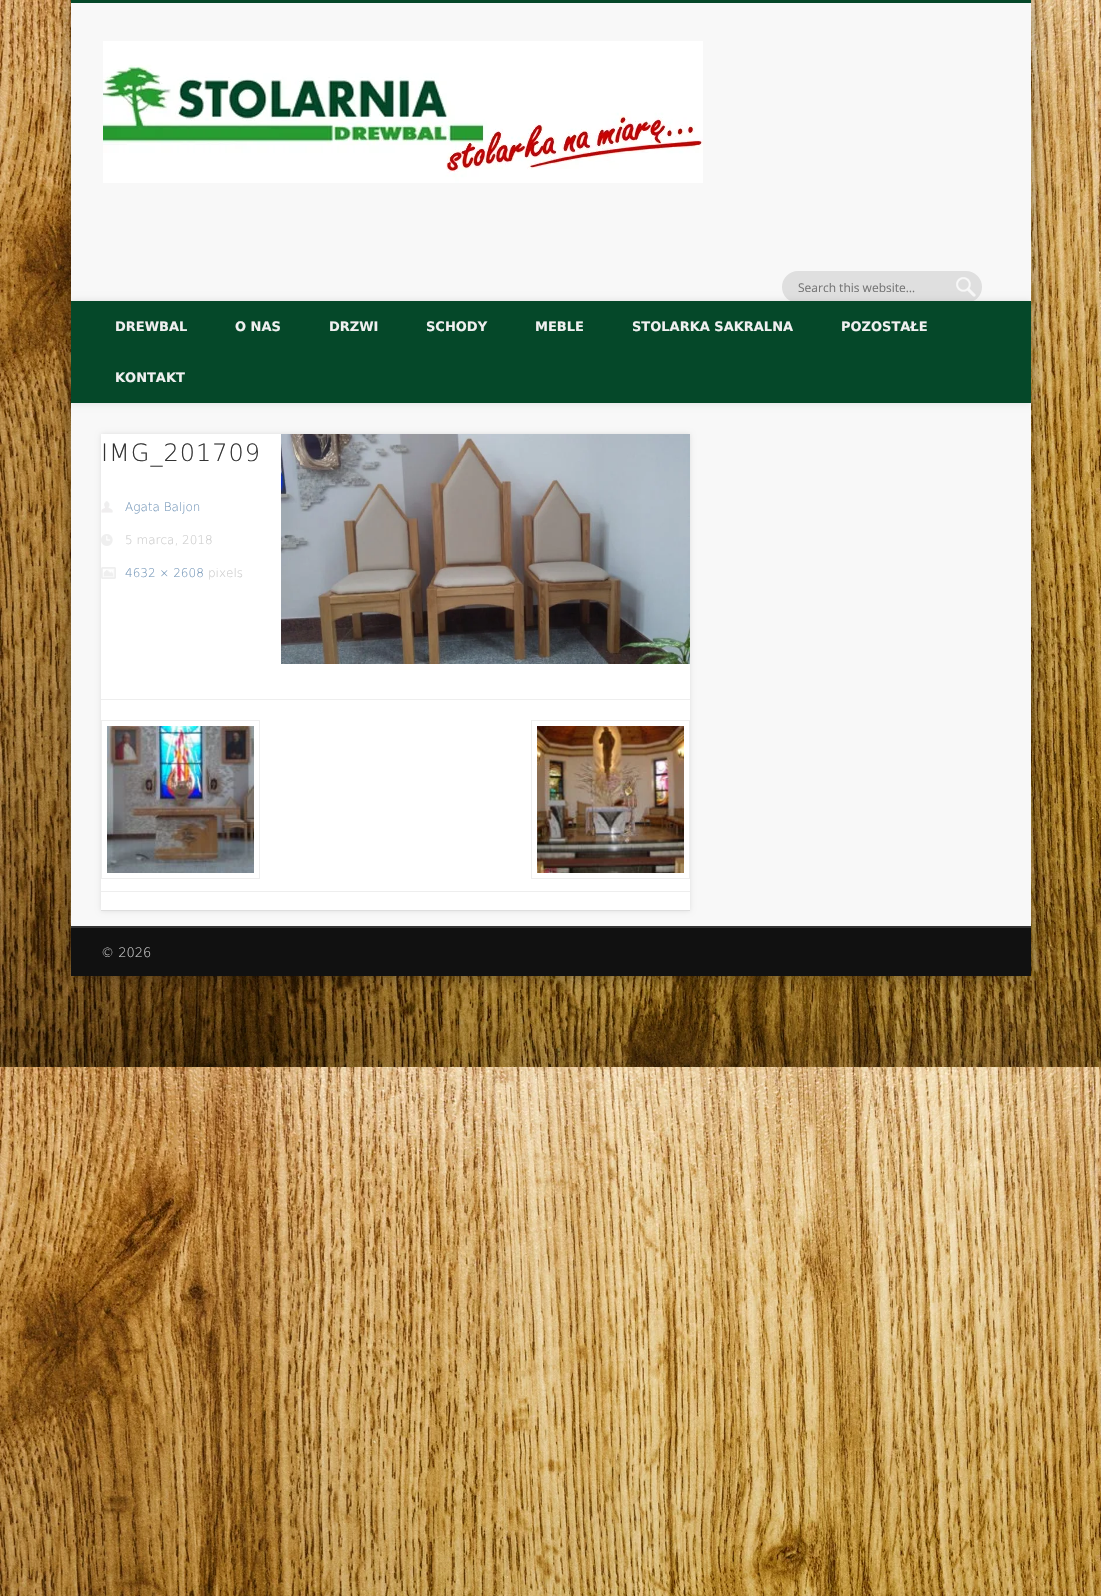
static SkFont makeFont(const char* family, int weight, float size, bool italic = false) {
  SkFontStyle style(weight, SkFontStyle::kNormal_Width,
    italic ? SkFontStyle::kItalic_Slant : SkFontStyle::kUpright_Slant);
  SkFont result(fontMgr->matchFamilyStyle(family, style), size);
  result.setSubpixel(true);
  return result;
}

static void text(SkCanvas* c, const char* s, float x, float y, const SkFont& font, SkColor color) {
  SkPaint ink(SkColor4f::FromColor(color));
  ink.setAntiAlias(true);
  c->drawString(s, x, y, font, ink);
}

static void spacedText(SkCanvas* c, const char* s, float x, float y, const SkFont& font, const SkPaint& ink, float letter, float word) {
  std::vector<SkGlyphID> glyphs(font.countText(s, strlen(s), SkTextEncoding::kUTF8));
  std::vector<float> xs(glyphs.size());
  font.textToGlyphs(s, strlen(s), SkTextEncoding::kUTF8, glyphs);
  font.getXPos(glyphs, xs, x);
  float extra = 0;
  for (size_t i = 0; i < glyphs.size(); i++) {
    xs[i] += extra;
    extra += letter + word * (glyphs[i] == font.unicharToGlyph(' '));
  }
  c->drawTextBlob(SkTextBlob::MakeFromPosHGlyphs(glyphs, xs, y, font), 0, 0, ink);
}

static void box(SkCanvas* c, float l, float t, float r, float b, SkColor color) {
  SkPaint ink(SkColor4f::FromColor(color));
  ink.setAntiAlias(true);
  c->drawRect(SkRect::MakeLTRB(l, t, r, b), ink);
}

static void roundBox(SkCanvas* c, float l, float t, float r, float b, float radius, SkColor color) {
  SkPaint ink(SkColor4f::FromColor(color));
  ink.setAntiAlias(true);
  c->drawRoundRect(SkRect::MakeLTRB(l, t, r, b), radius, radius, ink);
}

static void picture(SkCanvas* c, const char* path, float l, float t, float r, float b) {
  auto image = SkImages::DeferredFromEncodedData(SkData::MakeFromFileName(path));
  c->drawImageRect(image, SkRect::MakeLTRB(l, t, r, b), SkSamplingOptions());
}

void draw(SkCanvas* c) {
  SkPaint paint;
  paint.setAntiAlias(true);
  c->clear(0xffffffff);
  picture(c, "img_01.png", 0, 0, 1101, 1596);
  paint.setColor(0x66000000);
  paint.setMaskFilter(SkMaskFilter::MakeBlur(kNormal_SkBlurStyle, 9));
  c->drawRect(SkRect::MakeLTRB(71, 0, 1031, 976), paint);
  paint.setMaskFilter(nullptr);
  box(c, 71, 3, 1031, 926, 0xfff8f8f8);
  box(c, 71, 0, 1031, 3, 0xff054829);
  picture(c, "img_02.png", 103, 41, 703, 183);
  roundBox(c, 782, 271, 982, 303, 16, 0xffdfdfdf);
  picture(c, "img_03.png", 956, 277, 976, 297);
  SkFont face1 = makeFont("Open Sans", 400, 12);
  text(c, "Search this website…", 798, 292, face1, 0xff757575);
  c->save();
  c->clipRect(SkRect::MakeLTRB(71, 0, 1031, 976));
  paint.setColor(0x1a000000);
  paint.setMaskFilter(SkMaskFilter::MakeBlur(kNormal_SkBlurStyle, 3.5f));
  c->drawRect(SkRect::MakeLTRB(71, 301, 1031, 403), paint);
  paint.setMaskFilter(nullptr);
  c->restore();
  box(c, 71, 301, 1031, 403, 0xff054829);
  SkFont face2 = makeFont("DejaVu Sans", 700, 13);
  text(c, "DREWBAL", 115, 331, face2, 0xfff0f0f0);
  text(c, "O NAS", 235, 331, face2, 0xfff0f0f0);
  text(c, "DRZWI", 329, 331, face2, 0xfff0f0f0);
  text(c, "SCHODY", 426, 331, face2, 0xfff0f0f0);
  text(c, "MEBLE", 535, 331, face2, 0xfff0f0f0);
  text(c, "STOLARKA SAKRALNA", 632, 331, face2, 0xfff0f0f0);
  text(c, "POZOSTAŁE", 841, 331, face2, 0xfff0f0f0);
  text(c, "KONTAKT", 115, 382, face2, 0xfff0f0f0);
  paint.setMaskFilter(SkMaskFilter::MakeBlur(kNormal_SkBlurStyle, 2.5f));
  c->drawRect(SkRect::MakeLTRB(101, 434, 690, 911), paint);
  paint.setMaskFilter(nullptr);
  box(c, 101, 434, 690, 910, 0xffffffff);
  box(c, 101, 910, 690, 911, 0xffdedede);
  SkFont face3 = makeFont("DejaVu Sans", 200, 24);
  paint.setColor(0xff333333);
  spacedText(c, "IMG_201709", 101, 461, face3, paint, 1, 0);
  picture(c, "img_04.png", 101, 501, 113, 513);
  SkFont face4 = makeFont("DejaVu Sans", 200, 12);
  text(c, "Agata Baljon", 125, 511, face4, 0xff7597b9);
  picture(c, "img_05.png", 101, 534, 113, 546);
  text(c, "5 marca, 2018", 125, 544, face4, 0xffcccccc);
  picture(c, "img_06.png", 101, 567, 116, 579);
  text(c, "4632 × 2608", 125, 577, face4, 0xff7597b9);
  text(c, "pixels", 208, 577, face4, 0xffcccccc);
  picture(c, "img_07.png", 281, 434, 690, 664);
  box(c, 101, 699, 690, 700, 0xffeeeeee);
  box(c, 101, 891, 690, 892, 0xffeeeeee);
  paint.setStyle(SkPaint::kStroke_Style);
  paint.setStrokeWidth(1);
  paint.setColor(0xffeeeeee);
  c->drawRect(SkRect::MakeLTRB(101.5f, 720.5f, 259.5f, 878.5f), paint);
  picture(c, "img_08.png", 107, 726, 254, 873);
  c->drawRect(SkRect::MakeLTRB(531.5f, 720.5f, 689.5f, 878.5f), paint);
  picture(c, "img_09.png", 537, 726, 684, 873);
  box(c, 71, 926, 1031, 928, 0xff343434);
  box(c, 71, 928, 1031, 976, 0xff111111);
  SkFont face5 = makeFont("DejaVu Sans", 200, 13);
  text(c, "© 2026", 101, 957, face5, 0xffcccccc);
}
